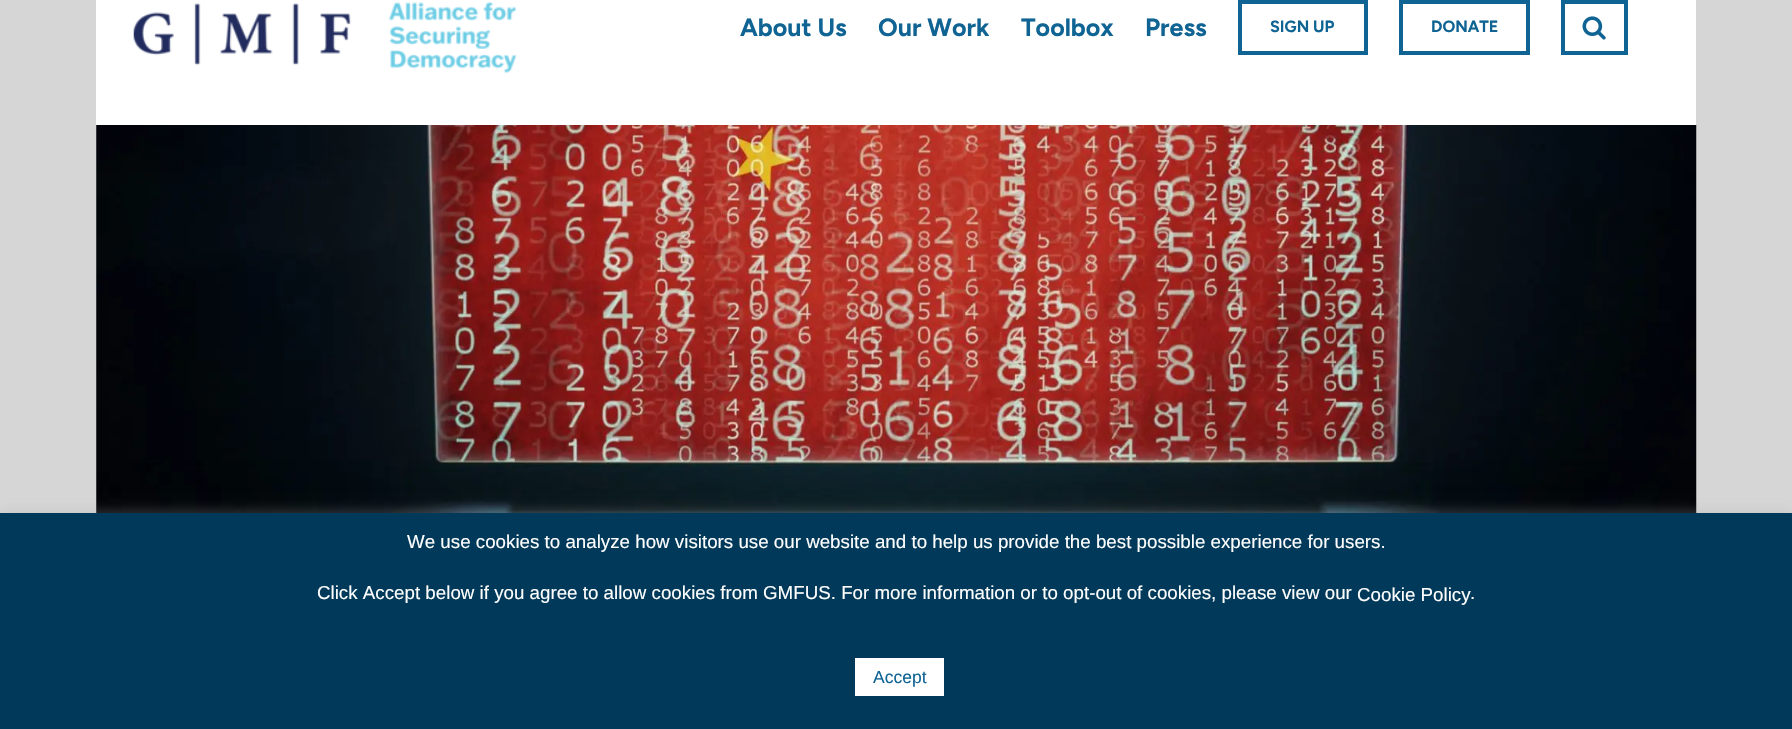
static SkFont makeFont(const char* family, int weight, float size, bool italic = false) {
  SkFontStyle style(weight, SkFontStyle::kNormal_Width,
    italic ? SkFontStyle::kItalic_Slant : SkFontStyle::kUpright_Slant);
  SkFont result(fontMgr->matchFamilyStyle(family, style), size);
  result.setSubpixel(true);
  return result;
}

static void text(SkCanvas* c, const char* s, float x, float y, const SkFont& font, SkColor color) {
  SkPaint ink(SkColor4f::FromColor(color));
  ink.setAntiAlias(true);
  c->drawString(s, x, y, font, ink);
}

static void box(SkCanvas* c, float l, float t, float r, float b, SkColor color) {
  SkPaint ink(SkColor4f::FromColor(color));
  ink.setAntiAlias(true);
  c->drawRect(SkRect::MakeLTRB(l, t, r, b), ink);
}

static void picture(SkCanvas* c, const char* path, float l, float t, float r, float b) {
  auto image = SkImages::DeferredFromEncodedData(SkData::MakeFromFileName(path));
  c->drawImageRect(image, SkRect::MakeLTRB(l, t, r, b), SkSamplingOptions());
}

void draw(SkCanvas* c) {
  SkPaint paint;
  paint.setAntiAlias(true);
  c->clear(0xffd7d6d6);
  box(c, 96, 0, 1696, 125, 0xffffffff);
  picture(c, "img_01.png", 133, 2, 517, 73);
  SkFont face1 = makeFont("Figtree", 700, 25);
  text(c, "About Us", 740, 36, face1, 0xff0f6494);
  text(c, "Our Work", 878, 36, face1, 0xff0f6494);
  text(c, "Toolbox", 1021, 36, face1, 0xff0f6494);
  text(c, "Press", 1145, 36, face1, 0xff0f6494);
  paint.setStyle(SkPaint::kStroke_Style);
  paint.setStrokeWidth(4);
  paint.setColor(0xff0f6494);
  c->drawRect(SkRect::MakeLTRB(1240, 2, 1366, 53), paint);
  SkFont face2 = makeFont("Figtree", 700, 16.25f);
  text(c, "SIGN UP", 1270, 32, face2, 0xff0f6494);
  c->drawRect(SkRect::MakeLTRB(1401, 2, 1528, 53), paint);
  text(c, "DONATE", 1431, 32, face2, 0xff0f6494);
  c->drawRect(SkRect::MakeLTRB(1563, 2, 1626, 53), paint);
  picture(c, "img_02.png", 1582, 16, 1606, 40);
  picture(c, "img_03.png", 96, 125, 1697, 513);
  paint.setStyle(SkPaint::kFill_Style);
  paint.setColor(0x4dacabab);
  paint.setMaskFilter(SkMaskFilter::MakeBlur(kNormal_SkBlurStyle, 6));
  c->drawRect(SkRect::MakeLTRB(0, 511, 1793, 729), paint);
  paint.setMaskFilter(nullptr);
  box(c, 0, 513, 1792, 729, 0xff003959);
  SkFont face3 = makeFont("Liberation Sans", 400, 18.75f);
  text(c, "We use cookies to analyze how visitors use our website and to help us provide the best possible experience for users.", 407, 548, face3, 0xffffffff);
  text(c, "Click Accept below if you agree to allow cookies from GMFUS. For more information or to opt-out of cookies, please view our", 317, 599, face3, 0xffffffff);
  text(c, "Cookie Policy", 1357, 601, face3, 0xffffffff);
  text(c, ".", 1470, 599, face3, 0xffffffff);
  box(c, 855, 658, 944, 696, 0xffffffff);
  SkFont face4 = makeFont("Liberation Sans", 400, 17.5f);
  text(c, "Accept", 873, 683, face4, 0xff0f6494);
}
